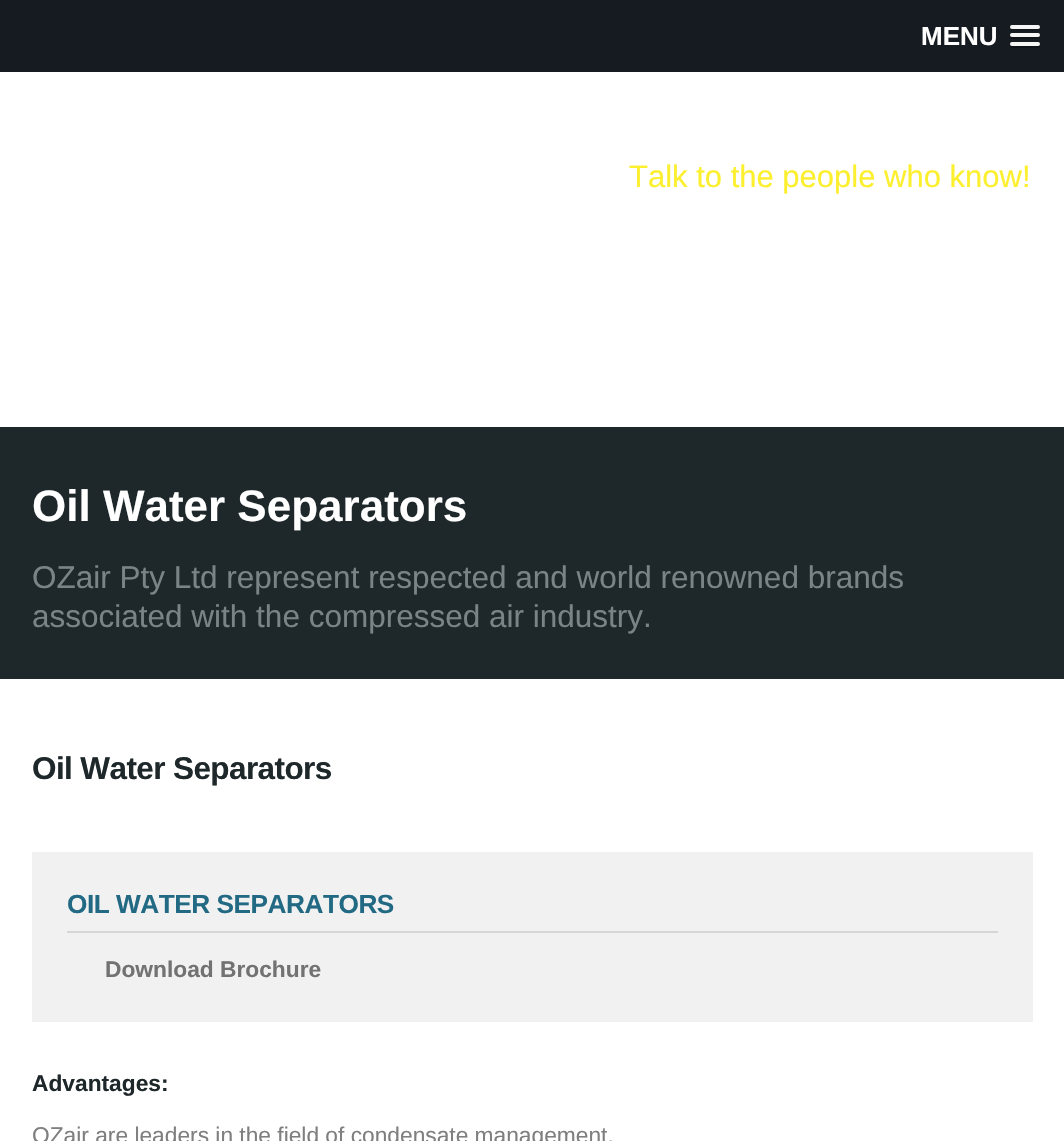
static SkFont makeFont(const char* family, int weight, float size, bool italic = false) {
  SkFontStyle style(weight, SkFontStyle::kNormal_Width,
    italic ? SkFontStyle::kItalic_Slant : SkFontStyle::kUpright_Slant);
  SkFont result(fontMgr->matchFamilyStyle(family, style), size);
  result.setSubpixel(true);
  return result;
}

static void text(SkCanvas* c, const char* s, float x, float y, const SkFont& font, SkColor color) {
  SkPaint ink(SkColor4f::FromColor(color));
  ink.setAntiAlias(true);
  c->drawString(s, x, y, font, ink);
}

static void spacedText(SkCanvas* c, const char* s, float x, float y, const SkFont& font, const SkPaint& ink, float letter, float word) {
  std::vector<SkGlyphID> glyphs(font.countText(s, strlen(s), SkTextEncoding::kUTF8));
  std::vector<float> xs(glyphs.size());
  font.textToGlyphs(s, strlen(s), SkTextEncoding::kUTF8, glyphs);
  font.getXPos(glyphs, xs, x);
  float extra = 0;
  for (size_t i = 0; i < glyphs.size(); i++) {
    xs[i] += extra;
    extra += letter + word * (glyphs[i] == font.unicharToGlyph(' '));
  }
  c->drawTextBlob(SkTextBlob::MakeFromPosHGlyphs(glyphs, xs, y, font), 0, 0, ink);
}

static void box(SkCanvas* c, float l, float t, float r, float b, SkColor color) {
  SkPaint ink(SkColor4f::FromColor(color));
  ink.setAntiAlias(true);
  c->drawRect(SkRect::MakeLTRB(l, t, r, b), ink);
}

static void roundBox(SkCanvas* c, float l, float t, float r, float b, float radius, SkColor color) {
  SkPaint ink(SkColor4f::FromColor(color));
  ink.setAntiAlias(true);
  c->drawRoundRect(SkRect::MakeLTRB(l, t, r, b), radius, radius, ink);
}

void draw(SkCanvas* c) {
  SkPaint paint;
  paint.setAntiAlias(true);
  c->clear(0xffffffff);
  box(c, 0, 0, 1064, 72, 0xff151b20);
  SkFont face1 = makeFont("Liberation Sans", 700, 26);
  text(c, "MENU", 921, 45, face1, 0xffffffff);
  paint.setColor(0xff101418);
  c->drawPath(SkPathBuilder().moveTo(1010, 27.5f).cubicTo(1009, 31, 1015.5f, 30, 1016.5f, 30).lineTo(1033.5f, 30).cubicTo(1035, 30, 1039.5f, 31, 1040, 28.5f).cubicTo(1040, 28, 1040, 27, 1039.5f, 26.5f).cubicTo(1039.5f, 27.5f, 1038.5f, 28, 1038, 28).lineTo(1011.5f, 28).cubicTo(1011, 28, 1010.5f, 27.5f, 1010, 27.5f).close().detach(), paint);
  roundBox(c, 1010, 25, 1040, 29, 2, 0xfff5f5f5);
  c->drawPath(SkPathBuilder().moveTo(1010, 36).cubicTo(1008.5f, 40, 1015.5f, 39, 1016.5f, 39).lineTo(1038.5f, 39).cubicTo(1040, 38.5f, 1040.5f, 36.5f, 1039.5f, 35.5f).lineTo(1038.5f, 36.5f).lineTo(1011.5f, 36.5f).close().detach(), paint);
  roundBox(c, 1010, 33, 1040, 37, 2, 0xfff5f5f5);
  c->drawPath(SkPathBuilder().moveTo(1010.5f, 45).cubicTo(1008, 49, 1015.5f, 48, 1016.5f, 48).lineTo(1038.5f, 48).cubicTo(1040, 47.5f, 1040.5f, 45.5f, 1039.5f, 44.5f).cubicTo(1039, 45, 1038.5f, 45.5f, 1038, 45.5f).lineTo(1011.5f, 45.5f).close().detach(), paint);
  roundBox(c, 1010, 42, 1040, 46, 2, 0xfff5f5f5);
  SkFont face2 = makeFont("Liberation Sans", 400, 31);
  text(c, "Talk to the people who know!", 629, 187, face2, 0xfffcef2d);
  box(c, 0, 427, 1064, 679, 0xff1e272a);
  SkFont face3 = makeFont("Liberation Sans", 700, 44);
  text(c, "Oil Water Separators", 32, 521, face3, 0xffffffff);
  SkFont face4 = makeFont("Liberation Sans", 400, 31.5f);
  text(c, "OZair Pty Ltd represent respected and world renowned brands", 32, 588, face4, 0xff7a8487);
  text(c, "associated with the compressed air industry.", 32, 627, face4, 0xff7a8487);
  SkFont face5 = makeFont("Liberation Sans", 700, 31.5f);
  paint.setColor(0xff1e272a);
  spacedText(c, "Oil Water Separators", 32, 779, face5, paint, -0.6f, 0);
  box(c, 32, 852, 1033, 1022, 0xfff1f1f1);
  box(c, 67, 931, 998, 933, 0xffd6d6d6);
  SkFont face6 = makeFont("Liberation Sans", 700, 26.25f);
  paint.setColor(0xff226a84);
  spacedText(c, "OIL WATER SEPARATORS", 67, 913, face6, paint, -0.5f, 0);
  SkFont face7 = makeFont("Liberation Sans", 700, 22.75f);
  text(c, "Download Brochure", 105, 977, face7, 0xff727272);
  text(c, "Advantages:", 32, 1091, face7, 0xff1e272a);
  SkFont face8 = makeFont("Liberation Sans", 400, 22.75f);
  text(c, "OZair are leaders in the field of condensate management.", 32, 1143, face8, 0xff7f7f7f);
}
